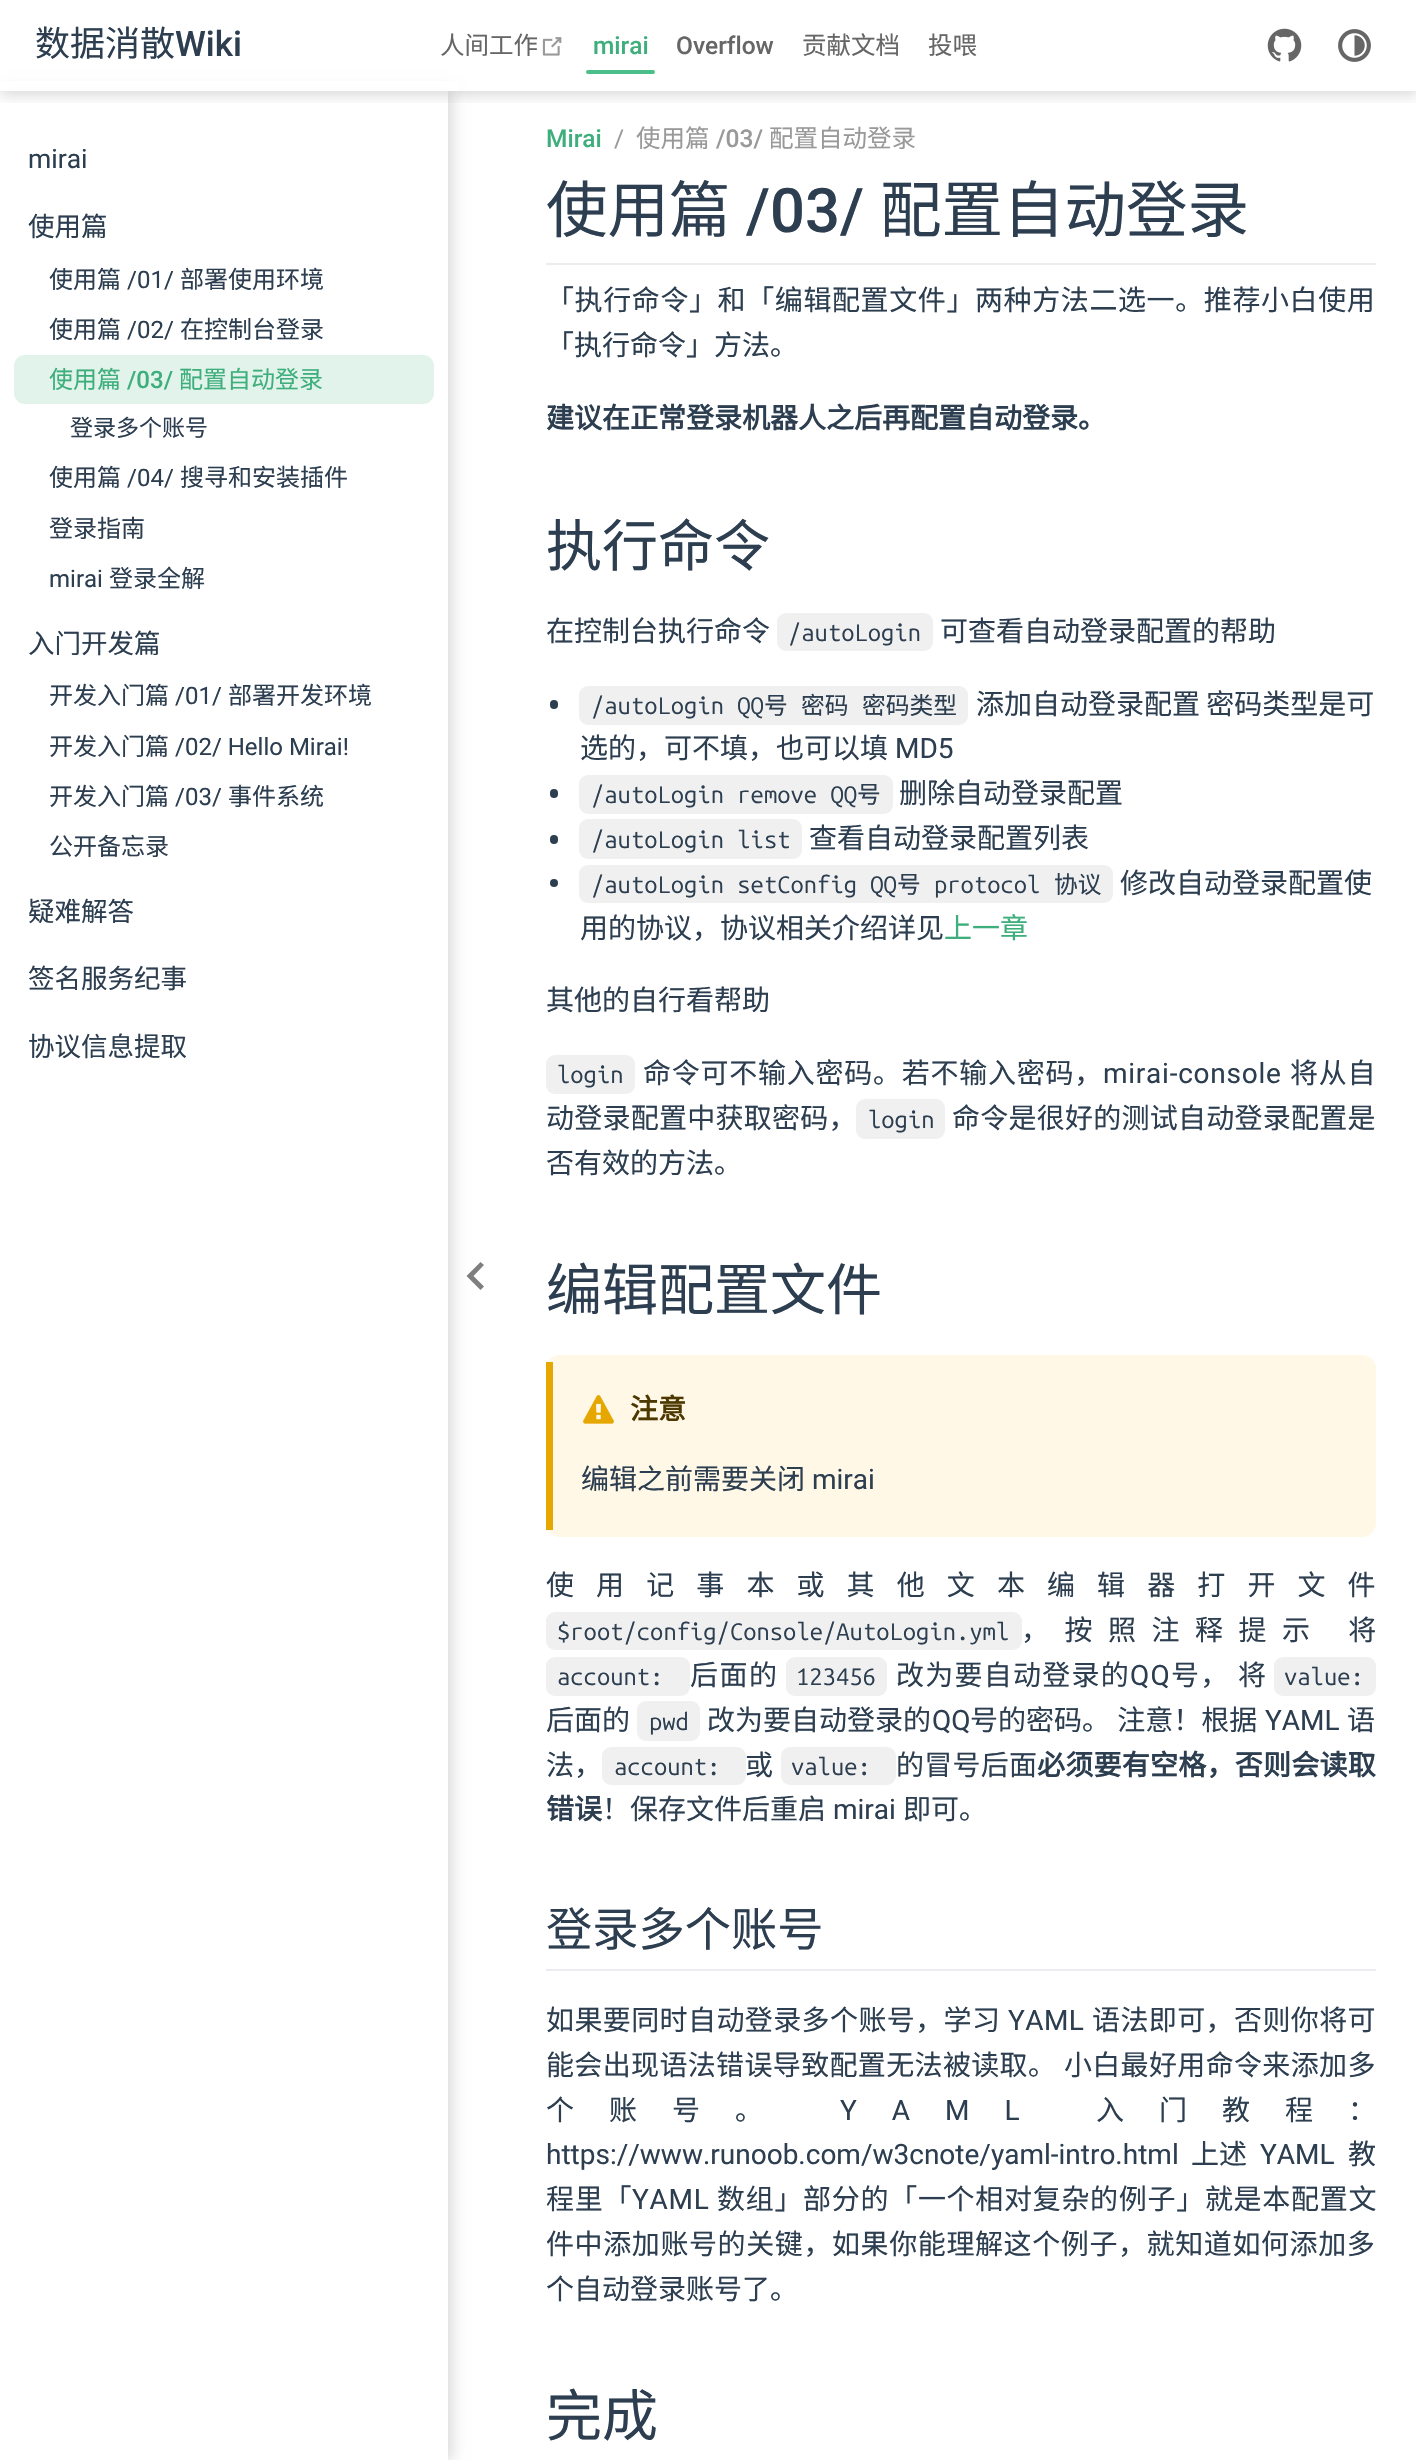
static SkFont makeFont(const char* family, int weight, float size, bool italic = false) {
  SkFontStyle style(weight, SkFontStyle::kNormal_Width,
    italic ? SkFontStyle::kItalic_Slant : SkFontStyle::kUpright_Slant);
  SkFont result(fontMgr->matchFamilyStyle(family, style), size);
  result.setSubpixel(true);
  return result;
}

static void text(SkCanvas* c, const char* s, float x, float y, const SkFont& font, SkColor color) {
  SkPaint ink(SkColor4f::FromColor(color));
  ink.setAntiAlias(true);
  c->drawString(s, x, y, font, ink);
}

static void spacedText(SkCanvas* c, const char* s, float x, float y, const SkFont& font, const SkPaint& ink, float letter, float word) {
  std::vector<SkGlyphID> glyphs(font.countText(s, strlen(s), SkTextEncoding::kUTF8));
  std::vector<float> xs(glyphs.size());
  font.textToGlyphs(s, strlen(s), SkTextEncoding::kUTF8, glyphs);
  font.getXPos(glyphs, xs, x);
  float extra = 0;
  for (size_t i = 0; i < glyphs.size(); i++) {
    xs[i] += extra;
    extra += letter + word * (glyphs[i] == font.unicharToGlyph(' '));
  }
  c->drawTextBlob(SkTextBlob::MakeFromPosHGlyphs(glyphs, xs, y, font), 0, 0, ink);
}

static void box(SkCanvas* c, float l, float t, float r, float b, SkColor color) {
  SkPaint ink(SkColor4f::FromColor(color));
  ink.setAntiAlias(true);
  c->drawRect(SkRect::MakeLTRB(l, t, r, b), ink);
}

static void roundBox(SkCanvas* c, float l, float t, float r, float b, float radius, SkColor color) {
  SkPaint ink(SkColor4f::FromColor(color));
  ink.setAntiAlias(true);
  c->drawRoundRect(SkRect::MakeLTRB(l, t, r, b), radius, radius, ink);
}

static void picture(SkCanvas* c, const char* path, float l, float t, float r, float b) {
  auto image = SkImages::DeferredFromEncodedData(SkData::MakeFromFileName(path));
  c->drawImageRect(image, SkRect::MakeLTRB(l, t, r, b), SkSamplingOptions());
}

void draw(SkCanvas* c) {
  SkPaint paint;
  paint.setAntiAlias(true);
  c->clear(0xffffffff);
  c->save();
  c->clipRect(SkRect::MakeLTRB(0, 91, 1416, 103));
  paint.setColor(0x26000000);
  paint.setMaskFilter(SkMaskFilter::MakeBlur(kNormal_SkBlurStyle, 7));
  c->drawRect(SkRect::MakeLTRB(0, 4, 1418, 95), paint);
  paint.setMaskFilter(nullptr);
  c->restore();
  c->save();
  c->clipPath(SkPathBuilder(SkPathFillType::kEvenOdd).moveTo(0, 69).lineTo(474, 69).lineTo(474, 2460).lineTo(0, 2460).close().moveTo(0, 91).lineTo(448, 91).lineTo(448, 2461).lineTo(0, 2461).close().detach(), true);
  paint.setMaskFilter(SkMaskFilter::MakeBlur(kNormal_SkBlurStyle, 7));
  c->drawRect(SkRect::MakeLTRB(4, 91, 452, 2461), paint);
  paint.setMaskFilter(nullptr);
  c->restore();
  box(c, 0, 81, 459, 91, 0xe6ffffff);
  SkFont face1 = makeFont("Noto Sans CJK SC", 400, 35);
  text(c, "数据消散", 35, 56, face1, 0xff2c3e50);
  SkFont face2 = makeFont("Roboto", 500, 35);
  text(c, "Wiki", 175, 56, face2, 0xff2c3e50);
  SkFont face3 = makeFont("Noto Sans CJK SC", 400, 24.5f);
  text(c, "人间工作", 440, 54, face3, 0xff666666);
  picture(c, "img_01.png", 542, 37, 562, 56);
  SkFont face4 = makeFont("Roboto", 500, 24.5f);
  text(c, "mirai", 593, 54, face4, 0xff3eaf7c);
  roundBox(c, 586, 70, 655, 74, 2, 0xff4abf8a);
  text(c, "Overflow", 676, 54, face4, 0xff666666);
  text(c, "贡献文档", 802, 54, face3, 0xff666666);
  text(c, "投喂", 928, 54, face3, 0xff666666);
  picture(c, "img_02.png", 1267, 28, 1302, 62);
  picture(c, "img_03.png", 1338, 29, 1371, 62);
  SkFont face5 = makeFont("Roboto", 400, 26.5f);
  text(c, "mirai", 28, 168, face5, 0xff2c3e50);
  SkFont face6 = makeFont("Noto Sans CJK SC", 400, 26.5f);
  text(c, "使用篇", 28, 236, face6, 0xff2c3e50);
  SkFont face7 = makeFont("Noto Sans CJK SC", 400, 24);
  text(c, "使用篇", 49, 288, face7, 0xff2c3e50);
  SkFont face8 = makeFont("Roboto", 400, 24);
  text(c, "/01/", 127, 288, face8, 0xff2c3e50);
  text(c, "部署使用环境", 180, 288, face7, 0xff2c3e50);
  text(c, "使用篇", 49, 338, face7, 0xff2c3e50);
  text(c, "/02/", 127, 338, face8, 0xff2c3e50);
  text(c, "在控制台登录", 180, 338, face7, 0xff2c3e50);
  roundBox(c, 14, 355, 434, 404, 11, 0xffe2f3eb);
  text(c, "使用篇", 49, 388, face7, 0xff3eaf7c);
  SkFont face9 = makeFont("Roboto", 500, 24);
  text(c, "/03/", 127, 388, face9, 0xff3eaf7c);
  text(c, "配置自动登录", 179, 388, face7, 0xff3eaf7c);
  SkFont face10 = makeFont("Noto Sans CJK SC", 400, 23);
  text(c, "登录多个账号", 70, 436, face10, 0xff2c3e50);
  text(c, "使用篇", 49, 486, face7, 0xff2c3e50);
  text(c, "/04/", 127, 486, face8, 0xff2c3e50);
  text(c, "搜寻和安装插件", 180, 486, face7, 0xff2c3e50);
  text(c, "登录指南", 49, 537, face7, 0xff2c3e50);
  text(c, "mirai", 49, 587, face8, 0xff2c3e50);
  text(c, "登录全解", 109, 587, face7, 0xff2c3e50);
  text(c, "入门开发篇", 28, 653, face6, 0xff2c3e50);
  text(c, "开发入门篇", 49, 704, face7, 0xff2c3e50);
  text(c, "/01/", 175, 704, face8, 0xff2c3e50);
  text(c, "部署开发环境", 228, 704, face7, 0xff2c3e50);
  text(c, "开发入门篇", 49, 755, face7, 0xff2c3e50);
  text(c, "/02/ Hello Mirai!", 175, 755, face8, 0xff2c3e50);
  text(c, "开发入门篇", 49, 805, face7, 0xff2c3e50);
  text(c, "/03/", 175, 805, face8, 0xff2c3e50);
  text(c, "事件系统", 228, 805, face7, 0xff2c3e50);
  text(c, "公开备忘录", 49, 855, face7, 0xff2c3e50);
  text(c, "疑难解答", 28, 921, face6, 0xff2c3e50);
  text(c, "签名服务纪事", 28, 988, face6, 0xff2c3e50);
  text(c, "协议信息提取", 28, 1056, face6, 0xff2c3e50);
  text(c, "Mirai", 546, 147, face4, 0xff3eaf7c);
  SkFont face11 = makeFont("Roboto", 400, 24.5f);
  text(c, "/", 614, 147, face11, 0xff999999);
  text(c, "使用篇", 636, 147, face3, 0xff999999);
  text(c, "/03/", 716, 147, face4, 0xff999999);
  text(c, "配置自动登录", 769, 147, face3, 0xff999999);
  SkFont face12 = makeFont("Noto Sans CJK SC", 400, 61.5f);
  text(c, "使用篇", 546, 232, face12, 0xff2c3e50);
  SkFont face13 = makeFont("Roboto", 500, 61.5f);
  text(c, "/03/", 746, 232, face13, 0xff2c3e50);
  text(c, "配置自动登录", 880, 232, face12, 0xff2c3e50);
  box(c, 546, 263, 1376, 265, 0xffeaecef);
  SkFont face14 = makeFont("Noto Sans CJK SC", 400, 28);
  paint.setColor(0xff2c3e50);
  spacedText(c, "「执行命令」和「编辑配置文件」两种方法二选一。推荐小白使用", 546, 310, face14, paint, 0.6f, 0);
  text(c, "「执行命令」方法。", 546, 355, face14, 0xff2c3e50);
  SkFont face15 = makeFont("Noto Sans CJK SC", 700, 28);
  text(c, "建议在正常登录机器人之后再配置自动登录。", 546, 428, face15, 0xff2c3e50);
  SkFont face16 = makeFont("Noto Sans CJK SC", 400, 56);
  text(c, "执行命令", 546, 566, face16, 0xff2c3e50);
  text(c, "在控制台执行命令", 546, 641, face14, 0xff2c3e50);
  roundBox(c, 777, 613, 933, 651, 9, 0xfff0f0f0);
  SkFont face17 = makeFont("Ubuntu Mono", 400, 23.75f);
  text(c, "/autoLogin", 788, 641, face17, 0xff2c3e50);
  text(c, "可查看自动登录配置的帮助", 940, 641, face14, 0xff2c3e50);
  roundBox(c, 550, 700, 558, 709, 4, 0xff2c3e50);
  roundBox(c, 579, 686, 968, 725, 9, 0xfff0f0f0);
  text(c, "/autoLogin QQ", 591, 714, face17, 0xff2c3e50);
  SkFont face18 = makeFont("Noto Sans CJK SC", 400, 23.75f);
  text(c, "号", 764, 714, face18, 0xff2c3e50);
  text(c, "密码", 801, 714, face18, 0xff2c3e50);
  text(c, "密码类型", 862, 714, face18, 0xff2c3e50);
  text(c, "添加自动登录配置 密码类型是可", 976, 714, face14, 0xff2c3e50);
  text(c, "选的，可不填，也可以填", 580, 758, face14, 0xff2c3e50);
  SkFont face19 = makeFont("Roboto", 400, 28);
  text(c, "MD5", 895, 758, face19, 0xff2c3e50);
  roundBox(c, 550, 789, 558, 798, 4, 0xff2c3e50);
  roundBox(c, 579, 775, 893, 814, 9, 0xfff0f0f0);
  text(c, "/autoLogin remove QQ", 591, 803, face17, 0xff2c3e50);
  text(c, "号", 857, 803, face18, 0xff2c3e50);
  text(c, "删除自动登录配置", 899, 803, face14, 0xff2c3e50);
  roundBox(c, 550, 835, 558, 844, 4, 0xff2c3e50);
  roundBox(c, 579, 819, 802, 859, 9, 0xfff0f0f0);
  text(c, "/autoLogin list", 591, 848, face17, 0xff2c3e50);
  text(c, "查看自动登录配置列表", 809, 848, face14, 0xff2c3e50);
  c->drawCircle(554, 883, 4, paint);
  roundBox(c, 579, 865, 1113, 903, 9, 0xfff0f0f0);
  text(c, "/autoLogin setConfig QQ", 591, 893, face17, 0xff2c3e50);
  text(c, "号", 897, 893, face18, 0xff2c3e50);
  text(c, "protocol", 934, 893, face17, 0xff2c3e50);
  text(c, "协议", 1054, 893, face18, 0xff2c3e50);
  text(c, "修改自动登录配置使", 1120, 893, face14, 0xff2c3e50);
  text(c, "用的协议，协议相关介绍详见", 580, 938, face14, 0xff2c3e50);
  text(c, "上一章", 944, 938, face14, 0xff3eaf7c);
  text(c, "其他的自行看帮助", 546, 1010, face14, 0xff2c3e50);
  roundBox(c, 546, 1055, 635, 1094, 9, 0xfff0f0f0);
  text(c, "login", 557, 1083, face17, 0xff2c3e50);
  spacedText(c, "命令可不输入密码。若不输入密码，", 643, 1083, face14, paint, 0.75f, 0);
  spacedText(c, "mirai-console", 1103, 1083, face19, paint, 0.75f, 0);
  spacedText(c, "将从自", 1290, 1083, face14, paint, 0.75f, 0);
  spacedText(c, "动登录配置中获取密码，", 546, 1128, face14, paint, 0.25f, 0);
  roundBox(c, 856, 1099, 945, 1139, 9, 0xfff0f0f0);
  text(c, "login", 868, 1128, face17, 0xff2c3e50);
  spacedText(c, "命令是很好的测试自动登录配置是", 952, 1128, face14, paint, 0.25f, 0);
  text(c, "否有效的方法。", 546, 1173, face14, 0xff2c3e50);
  text(c, "编辑配置文件", 546, 1310, face16, 0xff2c3e50);
  roundBox(c, 546, 1355, 1376, 1537, 14, 0xfffff8e6);
  box(c, 546, 1362, 553, 1530, 0xffe6a700);
  picture(c, "img_04.png", 583, 1395, 614, 1424);
  text(c, "注意", 630, 1419, face15, 0xff4d3800);
  text(c, "编辑之前需要关闭", 581, 1489, face14, 0xff2c3e50);
  text(c, "mirai", 812, 1489, face19, 0xff2c3e50);
  spacedText(c, "使用记事本或其他文本编辑器打开文件", 546, 1595, face14, paint, 22.1f, 0);
  roundBox(c, 546, 1612, 1022, 1650, 9, 0xfff0f0f0);
  text(c, "$root/config/Console/AutoLogin.yml", 557, 1640, face17, 0xff2c3e50);
  spacedText(c, "，按照注释提示 将", 1021, 1640, face14, paint, 15.5f, 1);
  roundBox(c, 546, 1657, 690, 1696, 9, 0xfff0f0f0);
  text(c, "account:", 557, 1685, face17, 0xff2c3e50);
  spacedText(c, "后面的", 690, 1685, face14, paint, 1.5f, 0);
  roundBox(c, 786, 1657, 887, 1696, 9, 0xfff0f0f0);
  text(c, "123456", 796, 1685, face17, 0xff2c3e50);
  spacedText(c, "改为要自动登录的", 896, 1685, face14, paint, 1.25f, 0);
  spacedText(c, "QQ", 1130, 1685, face19, paint, 1.25f, 0);
  spacedText(c, "号， 将", 1171, 1685, face14, paint, 1.25f, 1);
  roundBox(c, 1274, 1657, 1376, 1696, 9, 0xfff0f0f0);
  text(c, "value:", 1284, 1685, face17, 0xff2c3e50);
  text(c, "后面的", 546, 1730, face14, 0xff2c3e50);
  roundBox(c, 637, 1701, 700, 1741, 9, 0xfff0f0f0);
  text(c, "pwd", 649, 1730, face17, 0xff2c3e50);
  text(c, "改为要自动登录的", 707, 1730, face14, 0xff2c3e50);
  text(c, "QQ", 932, 1730, face19, 0xff2c3e50);
  spacedText(c, "号的密码。 注意！根据", 970, 1730, face14, paint, 0, 1);
  text(c, "YAML", 1265, 1730, face19, 0xff2c3e50);
  text(c, "语", 1347, 1730, face14, 0xff2c3e50);
  text(c, "法，", 546, 1775, face14, 0xff2c3e50);
  roundBox(c, 602, 1747, 746, 1785, 9, 0xfff0f0f0);
  text(c, "account:", 614, 1775, face17, 0xff2c3e50);
  text(c, "或", 745, 1775, face14, 0xff2c3e50);
  roundBox(c, 781, 1747, 896, 1785, 9, 0xfff0f0f0);
  text(c, "value:", 791, 1775, face17, 0xff2c3e50);
  spacedText(c, "的冒号后面", 896, 1775, face14, paint, 0.25f, 0);
  spacedText(c, "必须要有空格，否则会读取", 1037, 1775, face15, paint, 0.25f, 0);
  text(c, "错误", 546, 1819, face15, 0xff2c3e50);
  text(c, "！保存文件后重启", 602, 1819, face14, 0xff2c3e50);
  text(c, "mirai", 833, 1819, face19, 0xff2c3e50);
  text(c, "即可。", 903, 1819, face14, 0xff2c3e50);
  box(c, 546, 1969, 1376, 1971, 0xffeaecef);
  SkFont face20 = makeFont("Noto Sans CJK SC", 400, 46.25f);
  text(c, "登录多个账号", 546, 1946, face20, 0xff2c3e50);
  spacedText(c, "如果要同时自动登录多个账号，学习", 546, 2030, face14, paint, 0.4f, 0);
  spacedText(c, "YAML", 1008, 2030, face19, paint, 0.4f, 0);
  spacedText(c, "语法即可，否则你将可", 1092, 2030, face14, paint, 0.4f, 0);
  spacedText(c, "能会出现语法错误导致配置无法被读取。 小白最好用命令来添加多", 546, 2075, face14, paint, 0.35f, 1);
  spacedText(c, "个账号。", 546, 2120, face14, paint, 35, 0);
  spacedText(c, "YAML", 840, 2120, face19, paint, 35, 0);
  spacedText(c, "入门教程：", 1096, 2120, face14, paint, 35, 0);
  text(c, "https://www.runoob.com/w3cnote/yaml-intro.html", 546, 2164, face19, 0xff2c3e50);
  text(c, "上述", 1191, 2164, face14, 0xff2c3e50);
  text(c, "YAML", 1260, 2164, face19, 0xff2c3e50);
  text(c, "教", 1348, 2164, face14, 0xff2c3e50);
  spacedText(c, "程里「", 546, 2209, face14, paint, 0.7f, 0);
  spacedText(c, "YAML", 632, 2209, face19, paint, 0.7f, 0);
  spacedText(c, "数组」部分的「一个相对复杂的例子」就是本配置文", 717, 2209, face14, paint, 0.7f, 0);
  spacedText(c, "件中添加账号的关键，如果你能理解这个例子，就知道如何添加多", 546, 2254, face14, paint, 0.6f, 0);
  text(c, "个自动登录账号了。", 546, 2299, face14, 0xff2c3e50);
  text(c, "完成", 546, 2436, face16, 0xff2c3e50);
  paint.setColor(0xff7f7f7f);
  c->drawPath(SkPathBuilder().moveTo(484, 1286.5f).lineTo(473.5f, 1276).lineTo(484, 1265).lineTo(480.5f, 1262).lineTo(466.5f, 1276).lineTo(480.5f, 1290).close().detach(), paint);
}
